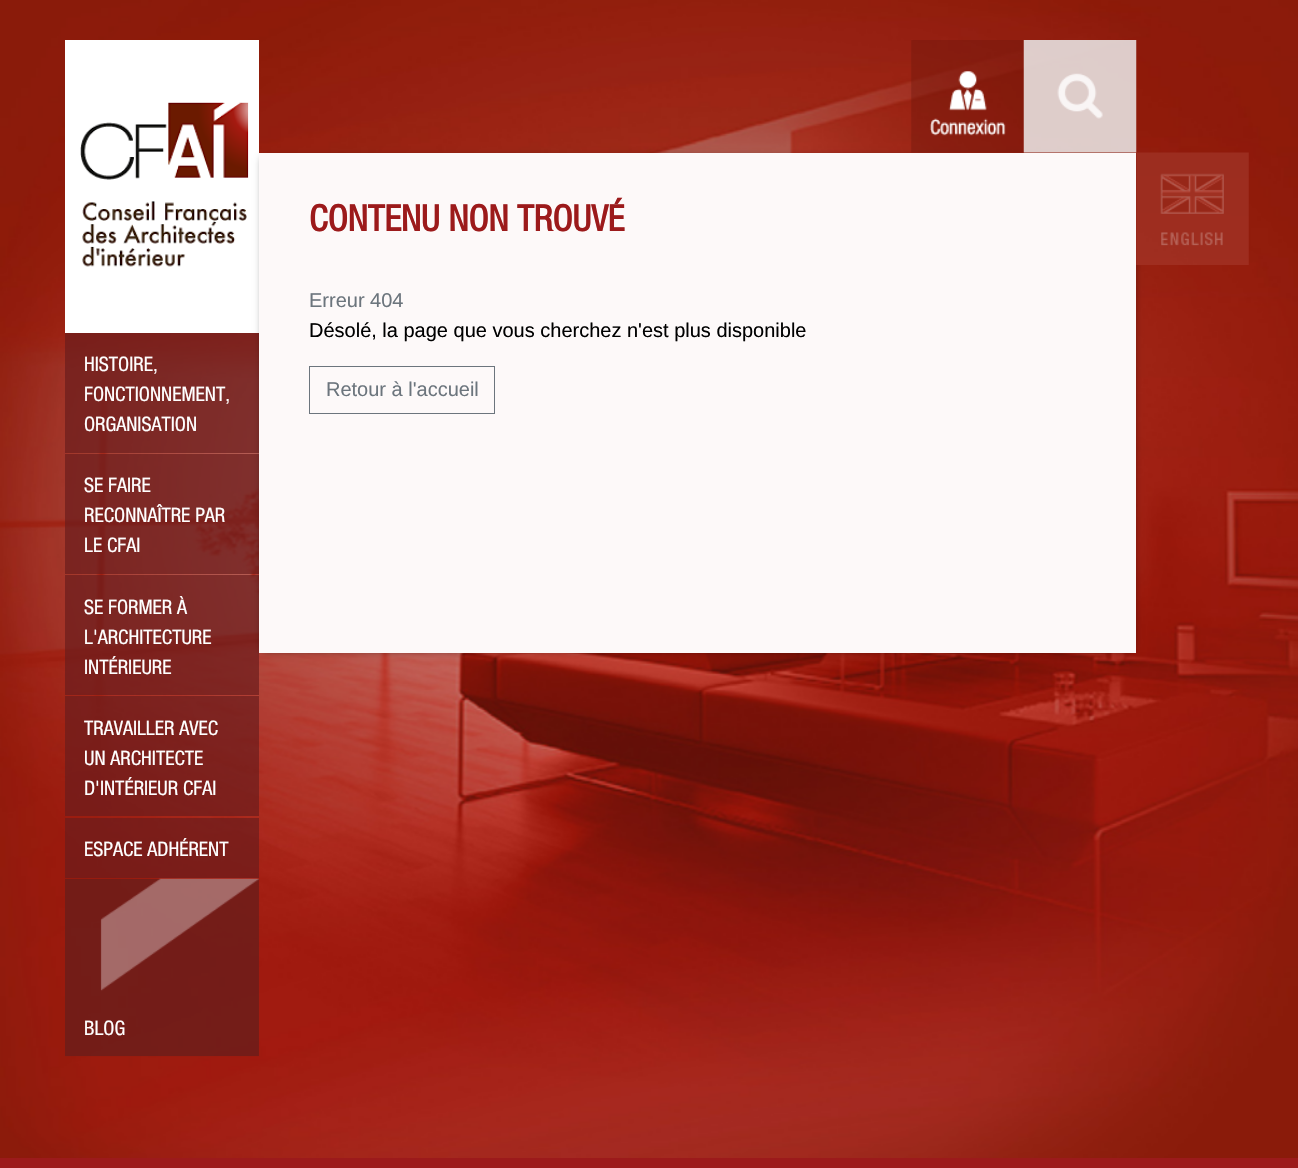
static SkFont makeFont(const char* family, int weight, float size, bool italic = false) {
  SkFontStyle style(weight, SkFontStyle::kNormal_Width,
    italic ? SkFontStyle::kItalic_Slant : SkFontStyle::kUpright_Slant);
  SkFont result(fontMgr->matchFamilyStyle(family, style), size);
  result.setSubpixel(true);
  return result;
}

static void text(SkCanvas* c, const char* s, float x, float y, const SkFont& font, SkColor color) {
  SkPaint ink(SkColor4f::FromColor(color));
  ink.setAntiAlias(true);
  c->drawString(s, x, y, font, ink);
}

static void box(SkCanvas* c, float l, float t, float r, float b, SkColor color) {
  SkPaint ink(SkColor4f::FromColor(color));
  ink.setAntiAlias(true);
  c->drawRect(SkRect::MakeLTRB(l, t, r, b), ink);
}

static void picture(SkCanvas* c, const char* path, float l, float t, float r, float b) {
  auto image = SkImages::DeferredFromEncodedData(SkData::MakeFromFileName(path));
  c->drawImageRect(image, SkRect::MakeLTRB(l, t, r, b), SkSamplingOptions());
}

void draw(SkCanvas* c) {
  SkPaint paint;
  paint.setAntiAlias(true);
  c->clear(0xffffffff);
  picture(c, "img_01.png", 0, 0, 1298, 1158);
  box(c, 65, 40, 259, 333, 0xffffffff);
  box(c, 65, 333, 259, 453, 0xb36a1b1b);
  box(c, 65, 454, 259, 574, 0xb36a1b1b);
  box(c, 65, 575, 259, 695, 0xb36a1b1b);
  paint.setColor(0xa1000000);
  paint.setMaskFilter(SkMaskFilter::MakeBlur(kNormal_SkBlurStyle, 4));
  c->drawRect(SkRect::MakeLTRB(263, 158, 1133, 650), paint);
  paint.setMaskFilter(nullptr);
  picture(c, "img_02.png", 911, 40, 1024, 153);
  picture(c, "img_03.png", 1023, 40, 1137, 153);
  box(c, 259, 153, 1136, 653, 0xfffdf9f9);
  SkFont face1 = makeFont("Helvetica Neue", 700, 36);
  text(c, "CONTENU NON TROUVÉ", 309, 231, face1, 0xff9c1a1b);
  SkFont face2 = makeFont("Liberation Sans", 400, 20);
  text(c, "Erreur 404", 309, 307, face2, 0xff6c757d);
  text(c, "Désolé, la page que vous cherchez n'est plus disponible", 309, 337, face2, 0xff000000);
  paint.setStyle(SkPaint::kStroke_Style);
  paint.setStrokeWidth(1);
  paint.setColor(0xff6c757d);
  c->drawRect(SkRect::MakeLTRB(309.5f, 366.5f, 494.5f, 413.5f), paint);
  text(c, "Retour à l'accueil", 326, 396, face2, 0xff6c757d);
  picture(c, "img_04.png", 1136, 152, 1249, 265);
  picture(c, "img_05.png", 80, 102, 249, 267);
  SkFont face3 = makeFont("Helvetica Neue", 400, 20);
  text(c, "HISTOIRE,", 84, 371, face3, 0xffffffff);
  text(c, "FONCTIONNEMENT,", 84, 401, face3, 0xffffffff);
  text(c, "ORGANISATION", 84, 431, face3, 0xffffffff);
  text(c, "SE FAIRE", 84, 492, face3, 0xffffffff);
  text(c, "RECONNAÎTRE PAR", 84, 522, face3, 0xffffffff);
  text(c, "LE CFAI", 84, 552, face3, 0xffffffff);
  text(c, "SE FORMER À", 84, 614, face3, 0xffffffff);
  text(c, "L'ARCHITECTURE", 84, 644, face3, 0xffffffff);
  text(c, "INTÉRIEURE", 84, 674, face3, 0xffffffff);
  box(c, 65, 696, 259, 816, 0xb36a1b1b);
  text(c, "TRAVAILLER AVEC", 84, 735, face3, 0xffffffff);
  text(c, "UN ARCHITECTE", 84, 765, face3, 0xffffffff);
  text(c, "D'INTÉRIEUR CFAI", 84, 795, face3, 0xffffffff);
  box(c, 65, 818, 259, 878, 0xb36a1b1b);
  text(c, "ESPACE ADHÉRENT", 84, 856, face3, 0xffffffff);
  box(c, 65, 879, 259, 1056, 0xb36a1b1b);
  picture(c, "img_06.png", 65, 878, 259, 1057);
  text(c, "BLOG", 84, 1035, face3, 0xffffffff);
  box(c, 0, 1158, 1298, 1168, 0xff9c1a1b);
}
